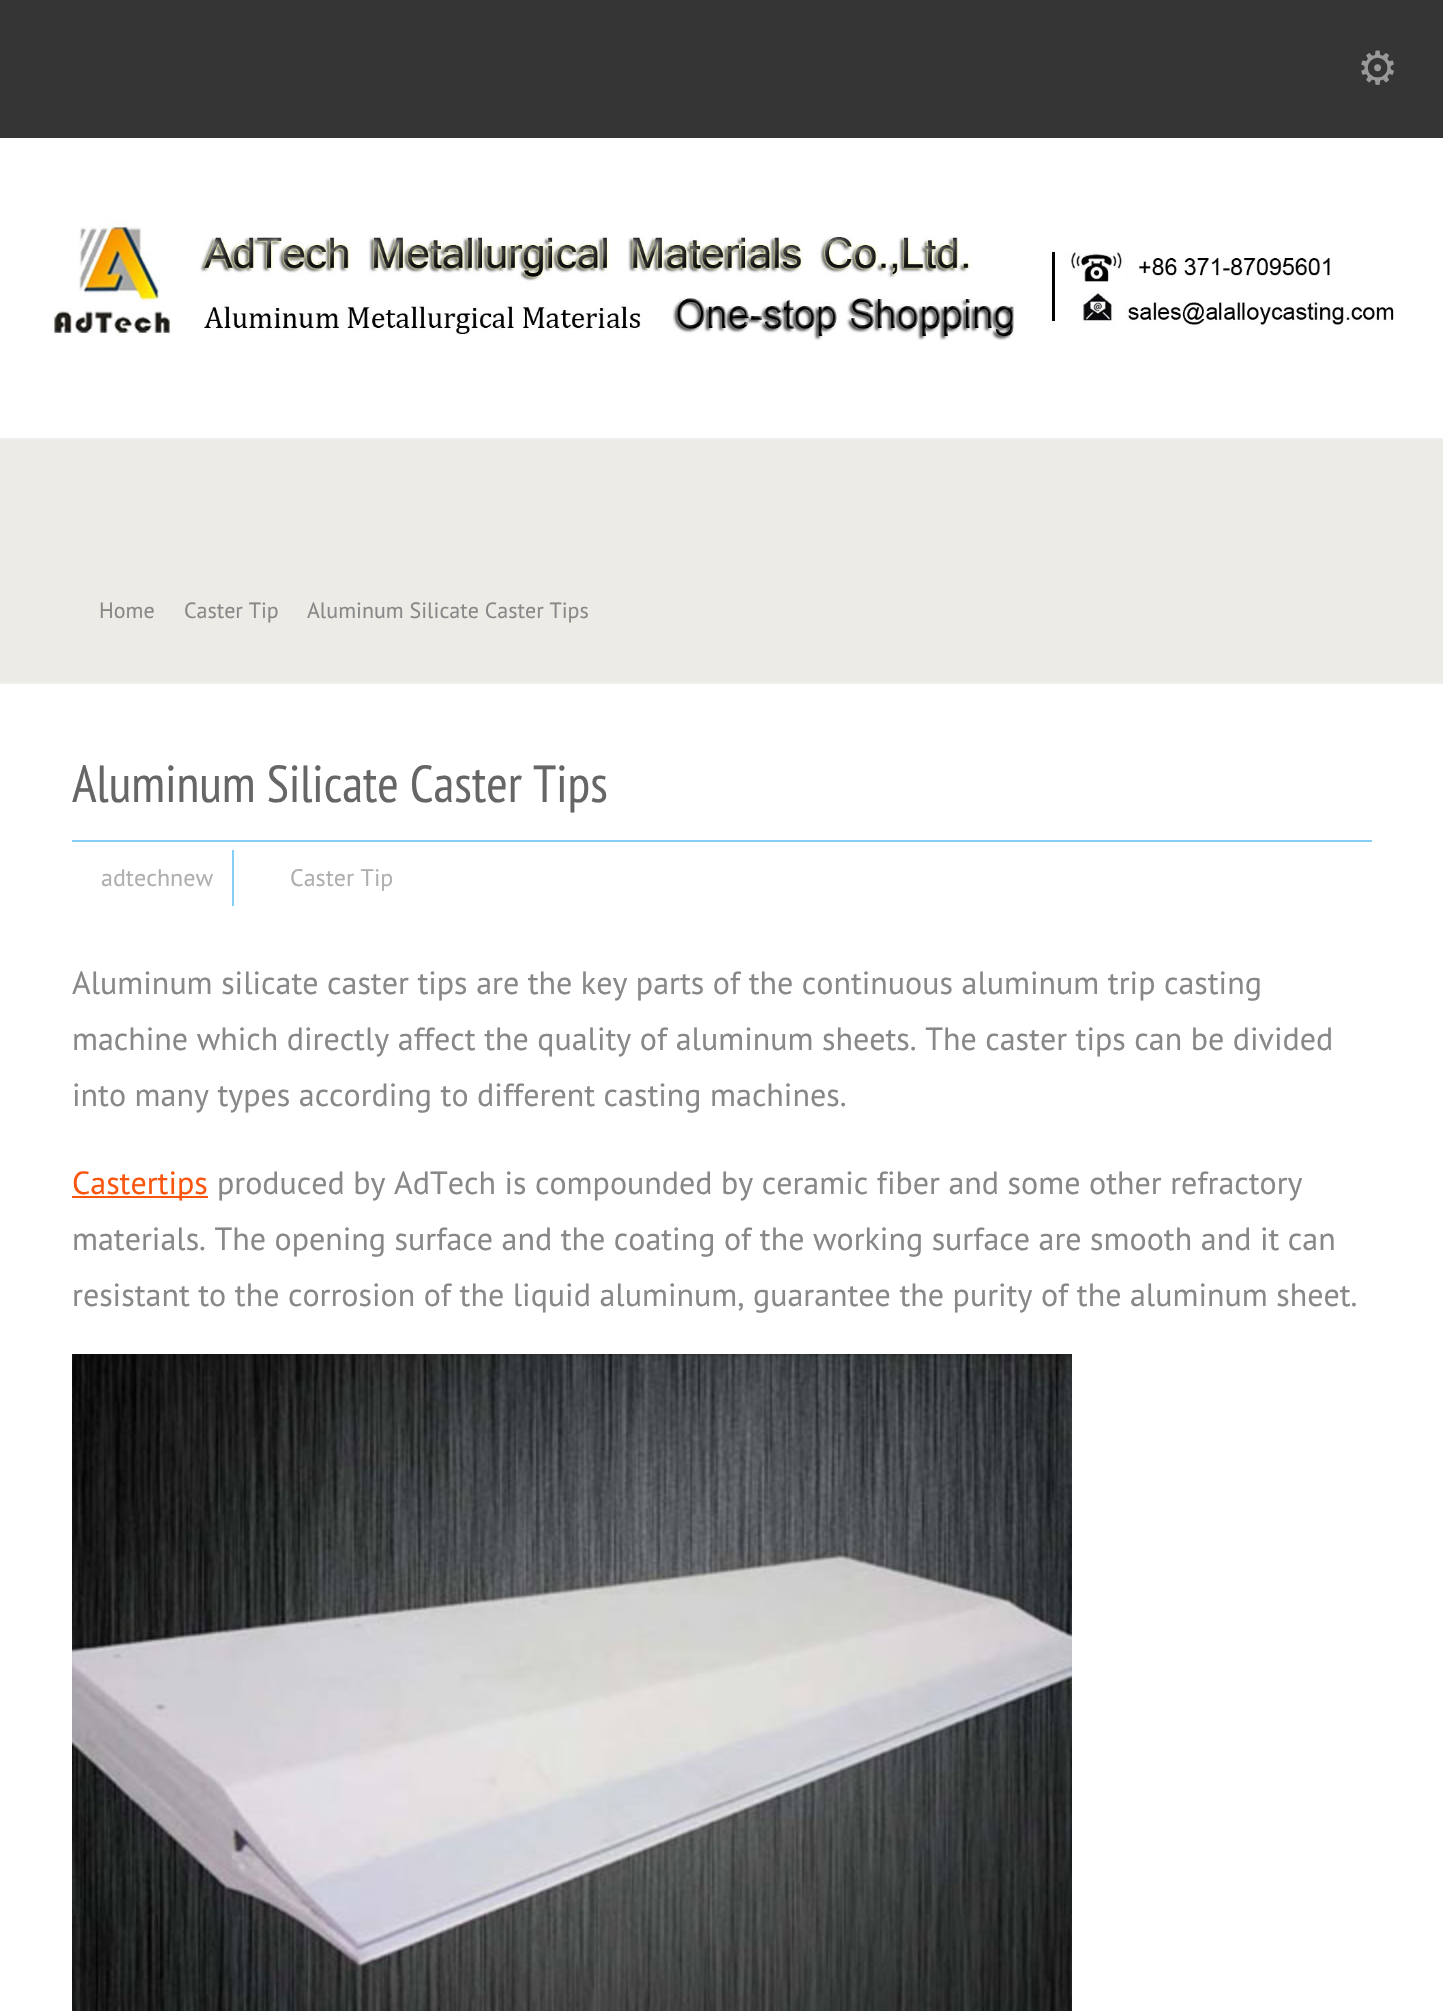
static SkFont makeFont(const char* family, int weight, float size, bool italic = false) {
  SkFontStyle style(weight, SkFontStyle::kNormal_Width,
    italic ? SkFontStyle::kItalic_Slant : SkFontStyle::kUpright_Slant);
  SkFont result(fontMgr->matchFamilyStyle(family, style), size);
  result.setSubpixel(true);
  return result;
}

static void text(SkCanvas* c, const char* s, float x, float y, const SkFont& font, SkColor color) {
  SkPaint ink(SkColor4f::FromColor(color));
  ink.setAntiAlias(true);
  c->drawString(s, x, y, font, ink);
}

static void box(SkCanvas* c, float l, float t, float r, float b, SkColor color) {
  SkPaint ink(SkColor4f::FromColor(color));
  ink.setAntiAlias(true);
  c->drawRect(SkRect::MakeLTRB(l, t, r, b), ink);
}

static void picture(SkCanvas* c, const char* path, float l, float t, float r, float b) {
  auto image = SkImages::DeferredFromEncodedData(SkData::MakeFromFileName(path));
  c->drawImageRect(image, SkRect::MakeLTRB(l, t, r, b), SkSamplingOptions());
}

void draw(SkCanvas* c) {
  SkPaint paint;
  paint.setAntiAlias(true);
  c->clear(0xffffffff);
  box(c, 0, 0, 1443, 138, 0xff353535);
  SkFont face1 = makeFont("DejaVu Sans", 400, 46);
  text(c, "⚙", 1357, 84, face1, 0xff999999);
  picture(c, "img_01.png", 53, 220, 1394, 341);
  box(c, 0, 440, 1443, 682, 0xffedebe6);
  box(c, 0, 438, 1443, 440, 0xffeeeeee);
  box(c, 0, 682, 1443, 684, 0xffeeeeee);
  SkFont face2 = makeFont("PT Sans", 400, 22);
  text(c, "Home", 99, 618, face2, 0xff888888);
  text(c, "Caster Tip", 184, 618, face2, 0xff888888);
  text(c, "Aluminum Silicate Caster Tips", 307, 618, face2, 0xff888888);
  SkFont face3 = makeFont("PT Sans Narrow", 400, 52);
  text(c, "Aluminum Silicate Caster Tips", 72, 802, face3, 0xff666666);
  box(c, 72, 840, 1372, 842, 0xff87cefa);
  box(c, 232, 850, 234, 906, 0xff87cefa);
  SkFont face4 = makeFont("PT Sans", 400, 24);
  text(c, "adtechnew", 101, 886, face4, 0xffafafaf);
  text(c, "Caster Tip", 290, 886, face4, 0xffafafaf);
  SkFont face5 = makeFont("PT Sans", 400, 32);
  text(c, "Aluminum silicate caster tips are the key parts of the continuous aluminum trip casting", 72, 994, face5, 0xff888888);
  text(c, "machine which directly affect the quality of aluminum sheets. The caster tips can be divided", 72, 1050, face5, 0xff888888);
  text(c, "into many types according to different casting machines.", 72, 1106, face5, 0xff888888);
  box(c, 72, 1196, 208, 1198, 0xfff9550f);
  text(c, "Castertips", 72, 1194, face5, 0xfff9550f);
  text(c, "produced by AdTech is compounded by ceramic fiber and some other refractory", 217, 1194, face5, 0xff888888);
  text(c, "materials. The opening surface and the coating of the working surface are smooth and it can", 72, 1250, face5, 0xff888888);
  text(c, "resistant to the corrosion of the liquid aluminum, guarantee the purity of the aluminum sheet.", 72, 1306, face5, 0xff888888);
  picture(c, "img_02.png", 72, 1354, 1072, 2011);
}
